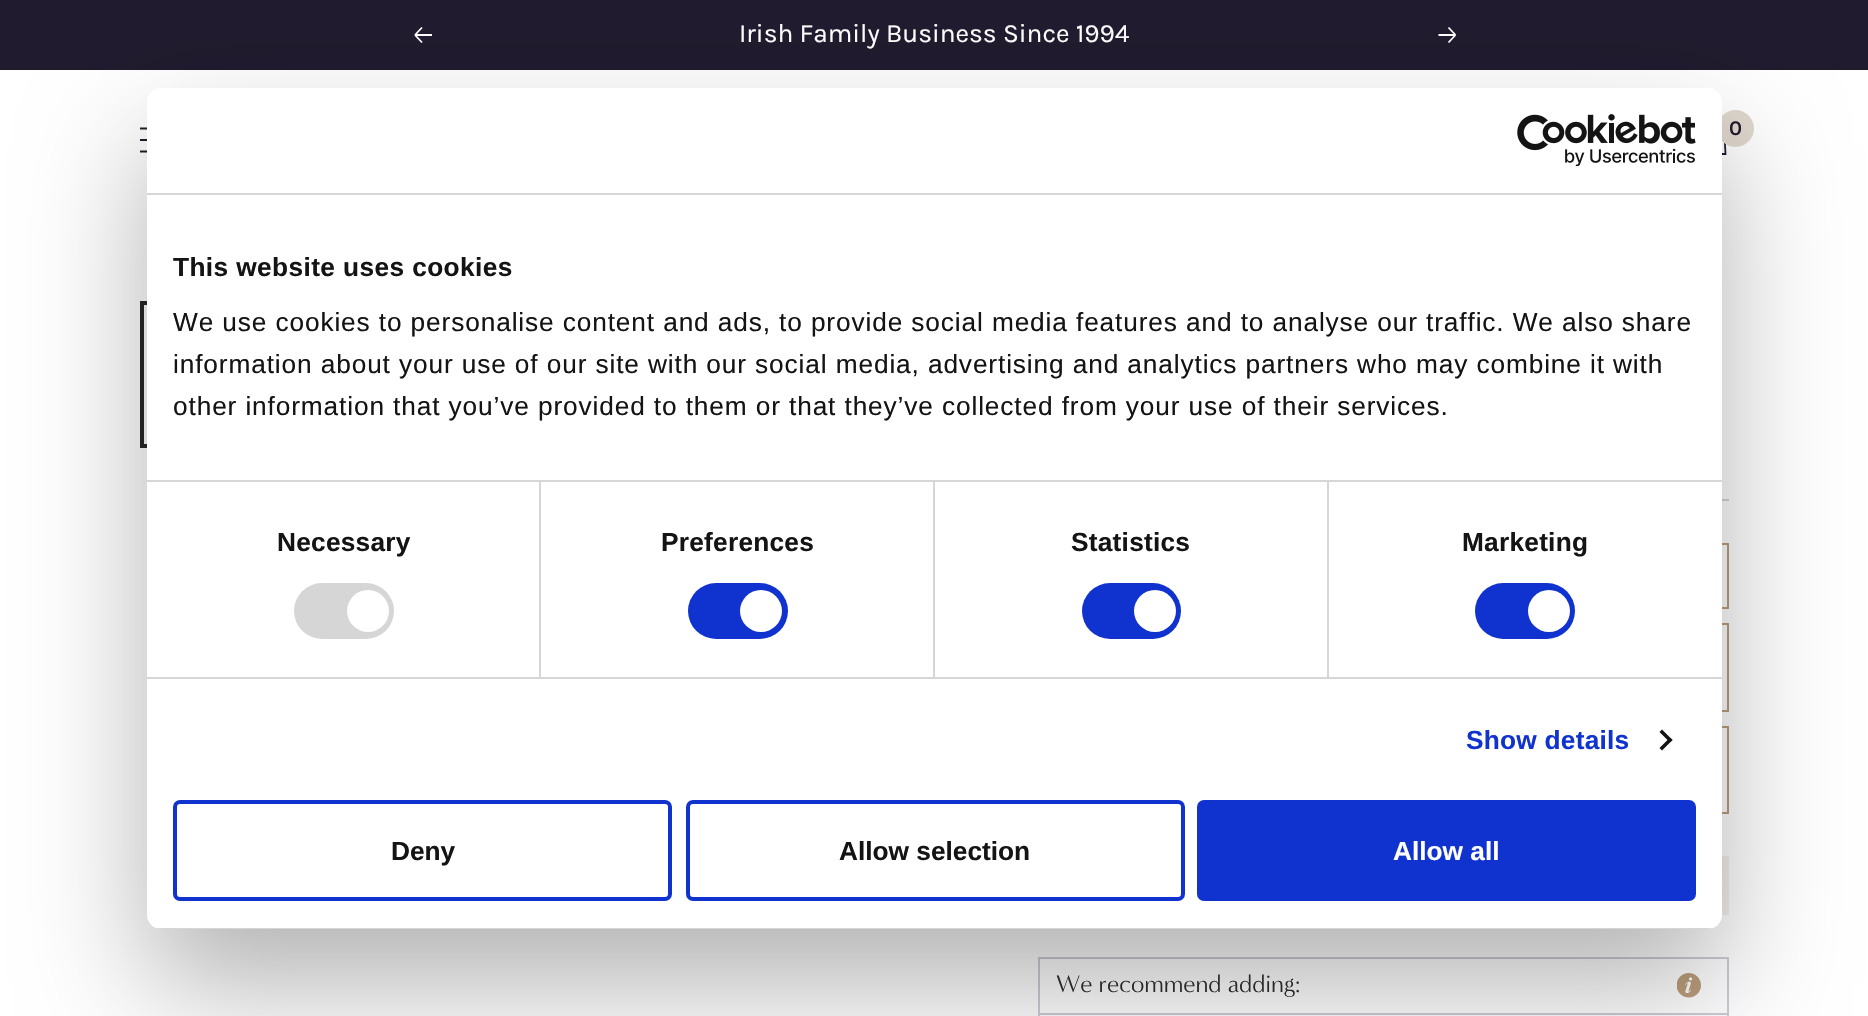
static SkFont makeFont(const char* family, int weight, float size, bool italic = false) {
  SkFontStyle style(weight, SkFontStyle::kNormal_Width,
    italic ? SkFontStyle::kItalic_Slant : SkFontStyle::kUpright_Slant);
  SkFont result(fontMgr->matchFamilyStyle(family, style), size);
  result.setSubpixel(true);
  return result;
}

static void text(SkCanvas* c, const char* s, float x, float y, const SkFont& font, SkColor color) {
  SkPaint ink(SkColor4f::FromColor(color));
  ink.setAntiAlias(true);
  c->drawString(s, x, y, font, ink);
}

static void spacedText(SkCanvas* c, const char* s, float x, float y, const SkFont& font, const SkPaint& ink, float letter, float word) {
  std::vector<SkGlyphID> glyphs(font.countText(s, strlen(s), SkTextEncoding::kUTF8));
  std::vector<float> xs(glyphs.size());
  font.textToGlyphs(s, strlen(s), SkTextEncoding::kUTF8, glyphs);
  font.getXPos(glyphs, xs, x);
  float extra = 0;
  for (size_t i = 0; i < glyphs.size(); i++) {
    xs[i] += extra;
    extra += letter + word * (glyphs[i] == font.unicharToGlyph(' '));
  }
  c->drawTextBlob(SkTextBlob::MakeFromPosHGlyphs(glyphs, xs, y, font), 0, 0, ink);
}

static void box(SkCanvas* c, float l, float t, float r, float b, SkColor color) {
  SkPaint ink(SkColor4f::FromColor(color));
  ink.setAntiAlias(true);
  c->drawRect(SkRect::MakeLTRB(l, t, r, b), ink);
}

static void roundBox(SkCanvas* c, float l, float t, float r, float b, float radius, SkColor color) {
  SkPaint ink(SkColor4f::FromColor(color));
  ink.setAntiAlias(true);
  c->drawRoundRect(SkRect::MakeLTRB(l, t, r, b), radius, radius, ink);
}

static void picture(SkCanvas* c, const char* path, float l, float t, float r, float b) {
  auto image = SkImages::DeferredFromEncodedData(SkData::MakeFromFileName(path));
  c->drawImageRect(image, SkRect::MakeLTRB(l, t, r, b), SkSamplingOptions());
}

void draw(SkCanvas* c) {
  SkPaint paint;
  paint.setAntiAlias(true);
  c->clear(0xffffffff);
  box(c, 0, 0, 1868, 70, 0xff201b2e);
  paint.setStyle(SkPaint::kStroke_Style);
  paint.setStrokeWidth(1.8f);
  paint.setColor(0xffffffff);
  c->drawPath(SkPathBuilder().moveTo(432, 35).lineTo(415, 35).moveTo(415, 35).lineTo(422, 42.5f).moveTo(415, 35).lineTo(422, 27.5f).detach(), paint);
  SkFont face1 = makeFont("Karla", 400, 26.25f);
  text(c, "Irish Family Business Since 1994", 739, 42, face1, 0xffffffff);
  c->drawPath(SkPathBuilder().moveTo(1438.5f, 35).lineTo(1455.5f, 35).moveTo(1455.5f, 35).lineTo(1448.5f, 42.5f).moveTo(1455.5f, 35).lineTo(1448.5f, 27.5f).detach(), paint);
  paint.setStrokeWidth(1.9f);
  paint.setColor(0xff201b2e);
  c->drawPath(SkPathBuilder().moveTo(140, 128.5f).lineTo(175, 128.5f).moveTo(140, 151.5f).lineTo(175, 151.5f).close().moveTo(140, 140).lineTo(175, 140).close().detach(), paint);
  paint.setStrokeWidth(1.8f);
  c->drawPath(SkPathBuilder().moveTo(1699, 126).lineTo(1724, 126).lineTo(1725.5f, 154).lineTo(1697.5f, 154).close().detach(), paint);
  paint.setStyle(SkPaint::kFill_Style);
  paint.setColor(0xffe0d8ce);
  c->drawCircle(1735.5f, 128.5f, 18.5f, paint);
  SkFont face2 = makeFont("Karla", 600, 21);
  text(c, "0", 1729, 135, face2, 0xff201b2e);
  paint.setStyle(SkPaint::kStroke_Style);
  paint.setStrokeWidth(4);
  paint.setColor(0xff282828);
  c->drawRect(SkRect::MakeLTRB(142, 303, 250, 446), paint);
  box(c, 1722, 499, 1729, 501, 0xffd6d6d6);
  paint.setStrokeWidth(2);
  paint.setColor(0xffbc9e7c);
  c->drawRect(SkRect::MakeLTRB(1562, 544, 1728, 608), paint);
  c->drawRect(SkRect::MakeLTRB(1504, 624, 1728, 711), paint);
  c->drawRect(SkRect::MakeLTRB(1039, 727, 1728, 813), paint);
  box(c, 1722, 856, 1729, 915, 0xfff3f0ed);
  paint.setColor(0xffcdcdd8);
  c->drawRect(SkRect::MakeLTRB(1039, 958, 1728, 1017), paint);
  box(c, 1040, 1013, 1727, 1015, 0xffcdcdd8);
  picture(c, "img_02.png", 1677, 973, 1701, 998);
  paint.setStyle(SkPaint::kFill_Style);
  paint.setColor(0x4d000000);
  paint.setMaskFilter(SkMaskFilter::MakeBlur(kNormal_SkBlurStyle, 59.5f));
  c->drawRoundRect(SkRect::MakeLTRB(147, 144, 1722, 985), 14, 14, paint);
  paint.setMaskFilter(nullptr);
  roundBox(c, 147, 88, 1722, 929, 14, 0xffffffff);
  box(c, 147, 193, 1722, 195, 0xffd6d6d6);
  picture(c, "img_01.png", 1517, 114, 1696, 166);
  box(c, 539, 481, 541, 677, 0xffd6d6d6);
  box(c, 933, 481, 935, 677, 0xffd6d6d6);
  box(c, 1327, 481, 1329, 677, 0xffd6d6d6);
  box(c, 147, 480, 1722, 482, 0xffd6d6d6);
  SkFont face3 = makeFont("Liberation Sans", 700, 26.25f);
  paint.setColor(0xff141414);
  spacedText(c, "This website uses cookies", 173, 276, face3, paint, 0.4f, 0);
  SkFont face4 = makeFont("Liberation Sans", 400, 26.25f);
  spacedText(c, "We use cookies to personalise content and ads, to provide social media features and to analyse our traffic. We also share", 173, 331, face4, paint, 0.88f, 0);
  spacedText(c, "information about your use of our site with our social media, advertising and analytics partners who may combine it with", 173, 373, face4, paint, 0.88f, 0);
  spacedText(c, "other information that you’ve provided to them or that they’ve collected from your use of their services.", 173, 415, face4, paint, 0.88f, 0);
  box(c, 147, 677, 1722, 679, 0xffd6d6d6);
  spacedText(c, "Necessary", 277, 551, face3, paint, 0.25f, 0);
  roundBox(c, 294, 583, 394, 639, 28, 0xffd6d6d6);
  paint.setColor(0xffffffff);
  c->drawCircle(368, 611, 21, paint);
  paint.setColor(0xff141414);
  spacedText(c, "Preferences", 661, 551, face3, paint, 0.25f, 0);
  roundBox(c, 688, 583, 788, 639, 28, 0xff1032cf);
  paint.setColor(0xffffffff);
  c->drawCircle(761, 611, 21, paint);
  paint.setColor(0xff141414);
  spacedText(c, "Statistics", 1071, 551, face3, paint, 0.25f, 0);
  roundBox(c, 1082, 583, 1181, 639, 28, 0xff1032cf);
  paint.setColor(0xffffffff);
  c->drawCircle(1155, 611, 21, paint);
  paint.setColor(0xff141414);
  spacedText(c, "Marketing", 1462, 551, face3, paint, 0.25f, 0);
  roundBox(c, 1475, 583, 1575, 639, 28, 0xff1032cf);
  paint.setColor(0xffffffff);
  c->drawCircle(1549, 611, 21, paint);
  paint.setColor(0xff1032cf);
  spacedText(c, "Show details", 1466, 749, face3, paint, 0.25f, 0);
  paint.setColor(0xff141414);
  c->drawPath(SkPathBuilder().moveTo(1662, 729.5f).lineTo(1672.5f, 740).lineTo(1670, 742.5f).lineTo(1659.5f, 732).close().detach(), paint);
  c->drawPath(SkPathBuilder().moveTo(1670, 737.5f).lineTo(1672.5f, 740).lineTo(1662, 750.5f).lineTo(1659.5f, 748).close().detach(), paint);
  c->save();
  c->clipPath(SkPathBuilder().moveTo(161, 88).lineTo(1708, 88).cubicTo(1715.5f, 88, 1722, 94.5f, 1722, 102).lineTo(1722, 915).cubicTo(1722, 922.5f, 1715.5f, 929, 1708, 929).lineTo(161, 929).cubicTo(153.5f, 929, 147, 922.5f, 147, 915).lineTo(147, 102).cubicTo(147, 94.5f, 153.5f, 88, 161, 88).close().detach(), true);
  box(c, 156, 928, 1713, 929, 0xffd6d6d6);
  c->restore();
  paint.setStyle(SkPaint::kStroke_Style);
  paint.setStrokeWidth(4);
  paint.setColor(0xff1032cf);
  c->drawRoundRect(SkRect::MakeLTRB(175, 802, 670, 899), 5, 5, paint);
  text(c, "Deny", 391, 860, face3, 0xff141414);
  c->drawRoundRect(SkRect::MakeLTRB(688, 802, 1183, 899), 5, 5, paint);
  text(c, "Allow selection", 839, 860, face3, 0xff141414);
  paint.setStyle(SkPaint::kFill_Style);
  c->drawRoundRect(SkRect::MakeLTRB(1199, 802, 1694, 899), 5, 5, paint);
  paint.setStyle(SkPaint::kStroke_Style);
  c->drawRoundRect(SkRect::MakeLTRB(1199, 802, 1694, 899), 5, 5, paint);
  text(c, "Allow all", 1393, 860, face3, 0xffffffff);
  SkFont face5 = makeFont("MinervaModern", 400, 24.5f);
  text(c, "We recommend adding:", 1056, 992, face5, 0xff282828);
}
